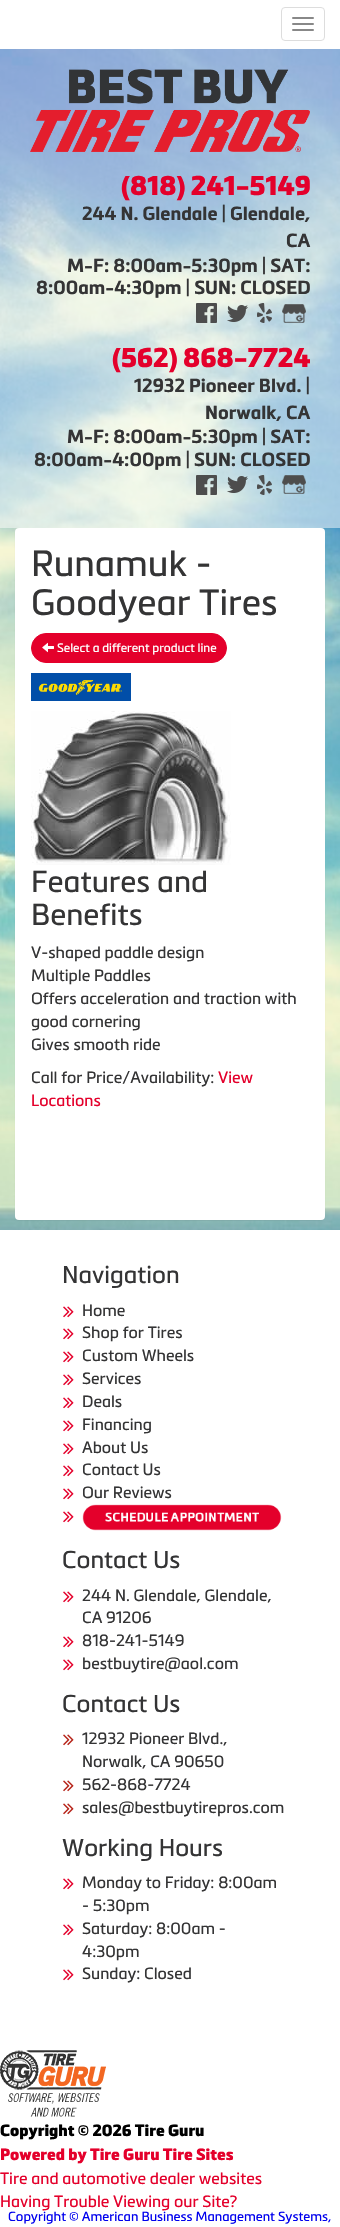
static SkFont makeFont(const char* family, int weight, float size, bool italic = false) {
  SkFontStyle style(weight, SkFontStyle::kNormal_Width,
    italic ? SkFontStyle::kItalic_Slant : SkFontStyle::kUpright_Slant);
  SkFont result(fontMgr->matchFamilyStyle(family, style), size);
  result.setSubpixel(true);
  return result;
}

static void text(SkCanvas* c, const char* s, float x, float y, const SkFont& font, SkColor color) {
  SkPaint ink(SkColor4f::FromColor(color));
  ink.setAntiAlias(true);
  c->drawString(s, x, y, font, ink);
}

static void box(SkCanvas* c, float l, float t, float r, float b, SkColor color) {
  SkPaint ink(SkColor4f::FromColor(color));
  ink.setAntiAlias(true);
  c->drawRect(SkRect::MakeLTRB(l, t, r, b), ink);
}

static void roundBox(SkCanvas* c, float l, float t, float r, float b, float radius, SkColor color) {
  SkPaint ink(SkColor4f::FromColor(color));
  ink.setAntiAlias(true);
  c->drawRoundRect(SkRect::MakeLTRB(l, t, r, b), radius, radius, ink);
}

static void picture(SkCanvas* c, const char* path, float l, float t, float r, float b) {
  auto image = SkImages::DeferredFromEncodedData(SkData::MakeFromFileName(path));
  c->drawImageRect(image, SkRect::MakeLTRB(l, t, r, b), SkSamplingOptions());
}

void draw(SkCanvas* c) {
  SkPaint paint;
  paint.setAntiAlias(true);
  c->clear(0xffffffff);
  paint.setStyle(SkPaint::kStroke_Style);
  paint.setStrokeWidth(1);
  paint.setColor(0xffdddddd);
  c->drawRoundRect(SkRect::MakeLTRB(281.5f, 7.5f, 324.5f, 40.5f), 3.5f, 3.5f, paint);
  roundBox(c, 292, 17, 314, 19, 1, 0xff888888);
  roundBox(c, 292, 23, 314, 25, 1, 0xff888888);
  roundBox(c, 292, 29, 314, 31, 1, 0xff888888);
  picture(c, "img_01.png", 0, 49, 340, 1230);
  box(c, 0, 49, 340, 528, 0x80ffffff);
  picture(c, "img_02.png", 30, 69, 310, 152);
  SkFont face1 = makeFont("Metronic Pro", 900, 26.75f);
  text(c, "(818) 241-5149", 121, 195, face1, 0xffe4002b);
  SkFont face2 = makeFont("Metronic Pro", 700, 18.7f);
  text(c, "244 N. Glendale | Glendale,", 82, 220, face2, 0xff343435);
  text(c, "CA", 286, 247, face2, 0xff343435);
  text(c, "M-F: 8:00am-5:30pm | SAT:", 67, 272, face2, 0xff343435);
  text(c, "8:00am-4:30pm | SUN: CLOSED", 36, 294, face2, 0xff343435);
  picture(c, "img_03.png", 196, 303, 217, 323);
  picture(c, "img_04.png", 227, 305, 248, 322);
  picture(c, "img_05.png", 257, 303, 272, 323);
  picture(c, "img_06.png", 282, 304, 306, 323);
  text(c, "(562) 868-7724", 112, 367, face1, 0xffe4002b);
  text(c, "12932 Pioneer Blvd. |", 134, 392, face2, 0xff343435);
  text(c, "Norwalk, CA", 205, 419, face2, 0xff343435);
  text(c, "M-F: 8:00am-5:30pm | SAT:", 67, 443, face2, 0xff343435);
  text(c, "8:00am-4:00pm | SUN: CLOSED", 34, 466, face2, 0xff343435);
  picture(c, "img_07.png", 196, 475, 217, 495);
  picture(c, "img_08.png", 227, 476, 248, 493);
  picture(c, "img_09.png", 257, 475, 272, 495);
  picture(c, "img_10.png", 282, 475, 306, 494);
  paint.setStyle(SkPaint::kFill_Style);
  paint.setColor(0x0d000000);
  paint.setMaskFilter(SkMaskFilter::MakeBlur(kNormal_SkBlurStyle, 0.5f));
  c->drawRoundRect(SkRect::MakeLTRB(15, 529, 325, 1221), 4, 4, paint);
  paint.setMaskFilter(nullptr);
  roundBox(c, 15, 528, 325, 1220, 4, 0xffffffff);
  SkFont face3 = makeFont("Metronic Pro", 400, 36);
  text(c, "Runamuk -", 31, 576, face3, 0xff343435);
  text(c, "Goodyear Tires", 31, 615, face3, 0xff343435);
  paint.setColor(0xffe4002b);
  c->drawRoundRect(SkRect::MakeLTRB(31.5f, 633.5f, 226.5f, 662.5f), 14.5f, 14.5f, paint);
  paint.setStyle(SkPaint::kStroke_Style);
  c->drawRoundRect(SkRect::MakeLTRB(31.5f, 633.5f, 226.5f, 662.5f), 14.5f, 14.5f, paint);
  picture(c, "img_11.png", 42, 642, 54, 653);
  SkFont face4 = makeFont("Metronic Pro", 400, 12);
  text(c, "Select a different product line", 57, 652, face4, 0xffffffff);
  picture(c, "img_12.png", 31, 673, 131, 701);
  picture(c, "img_13.png", 31, 711, 231, 865);
  SkFont face5 = makeFont("Metronic Pro", 400, 30);
  text(c, "Features and", 31, 892, face5, 0xff343435);
  text(c, "Benefits", 31, 925, face5, 0xff343435);
  SkFont face6 = makeFont("Metronic Pro", 400, 16);
  text(c, "V-shaped paddle design", 31, 958, face6, 0xff343435);
  text(c, "Multiple Paddles", 31, 981, face6, 0xff343435);
  text(c, "Offers acceleration and traction with", 31, 1004, face6, 0xff343435);
  text(c, "good cornering", 31, 1027, face6, 0xff343435);
  text(c, "Gives smooth ride", 31, 1050, face6, 0xff343435);
  text(c, "Call for Price/Availability:", 31, 1083, face6, 0xff343435);
  text(c, "View", 218, 1083, face6, 0xffe4002b);
  text(c, "Locations", 31, 1106, face6, 0xffe4002b);
  SkFont face7 = makeFont("Metronic Pro", 400, 24);
  text(c, "Navigation", 62, 1283, face7, 0xff343435);
  picture(c, "img_14.png", 63, 1306, 74, 1318);
  text(c, "Home", 82, 1316, face6, 0xff343435);
  picture(c, "img_14.png", 63, 1328, 74, 1340);
  text(c, "Shop for Tires", 82, 1338, face6, 0xff343435);
  picture(c, "img_14.png", 63, 1351, 74, 1363);
  text(c, "Custom Wheels", 82, 1361, face6, 0xff343435);
  picture(c, "img_14.png", 63, 1374, 74, 1386);
  text(c, "Services", 82, 1384, face6, 0xff343435);
  picture(c, "img_14.png", 63, 1397, 74, 1409);
  text(c, "Deals", 82, 1407, face6, 0xff343435);
  picture(c, "img_14.png", 63, 1420, 74, 1432);
  text(c, "Financing", 82, 1430, face6, 0xff343435);
  picture(c, "img_14.png", 63, 1443, 74, 1455);
  text(c, "About Us", 82, 1453, face6, 0xff343435);
  picture(c, "img_14.png", 63, 1465, 74, 1477);
  text(c, "Contact Us", 82, 1475, face6, 0xff343435);
  picture(c, "img_14.png", 63, 1488, 74, 1500);
  text(c, "Our Reviews", 82, 1498, face6, 0xff343435);
  picture(c, "img_14.png", 63, 1511, 74, 1523);
  picture(c, "img_15.png", 82, 1504, 282, 1531);
  text(c, "Contact Us", 62, 1568, face7, 0xff343435);
  picture(c, "img_14.png", 63, 1591, 74, 1603);
  text(c, "244 N. Glendale, Glendale,", 82, 1601, face6, 0xff343435);
  text(c, "CA 91206", 82, 1623, face6, 0xff343435);
  picture(c, "img_14.png", 63, 1636, 74, 1648);
  text(c, "818-241-5149", 82, 1646, face6, 0xff343435);
  picture(c, "img_14.png", 63, 1659, 74, 1671);
  text(c, "bestbuytire@aol.com", 82, 1669, face6, 0xff343435);
  text(c, "Contact Us", 62, 1712, face7, 0xff343435);
  picture(c, "img_16.png", 63, 1734, 74, 1746);
  text(c, "12932 Pioneer Blvd.,", 82, 1744, face6, 0xff343435);
  text(c, "Norwalk, CA 90650", 82, 1767, face6, 0xff343435);
  picture(c, "img_16.png", 63, 1780, 74, 1792);
  text(c, "562-868-7724", 82, 1790, face6, 0xff343435);
  picture(c, "img_16.png", 63, 1803, 74, 1815);
  text(c, "sales@bestbuytirepros.com", 82, 1813, face6, 0xff343435);
  text(c, "Working Hours", 62, 1856, face7, 0xff343435);
  picture(c, "img_14.png", 63, 1878, 74, 1890);
  text(c, "Monday to Friday: 8:00am", 82, 1888, face6, 0xff343435);
  text(c, "- 5:30pm", 82, 1911, face6, 0xff343435);
  picture(c, "img_14.png", 63, 1924, 74, 1936);
  text(c, "Saturday: 8:00am -", 82, 1934, face6, 0xff343435);
  text(c, "4:30pm", 82, 1957, face6, 0xff343435);
  picture(c, "img_14.png", 63, 1969, 74, 1981);
  text(c, "Sunday: Closed", 82, 1979, face6, 0xff343435);
  picture(c, "img_17.png", 0, 2050, 106, 2117);
  SkFont face8 = makeFont("Metronic Pro", 900, 16);
  text(c, "Copyright © 2026 Tire Guru", 0, 2136, face8, 0xff000000);
  text(c, "Powered by Tire Guru Tire Sites", 0, 2160, face8, 0xffe4002b);
  text(c, "Tire and automotive dealer websites", 0, 2184, face6, 0xffe4002b);
  text(c, "Having Trouble Viewing our Site?", 0, 2207, face6, 0xffe4002b);
  SkFont face9 = makeFont("Metronic Pro", 400, 13);
  text(c, "Copyright © American Business Management Systems,", 8, 2221, face9, 0xff0000ee);
}
